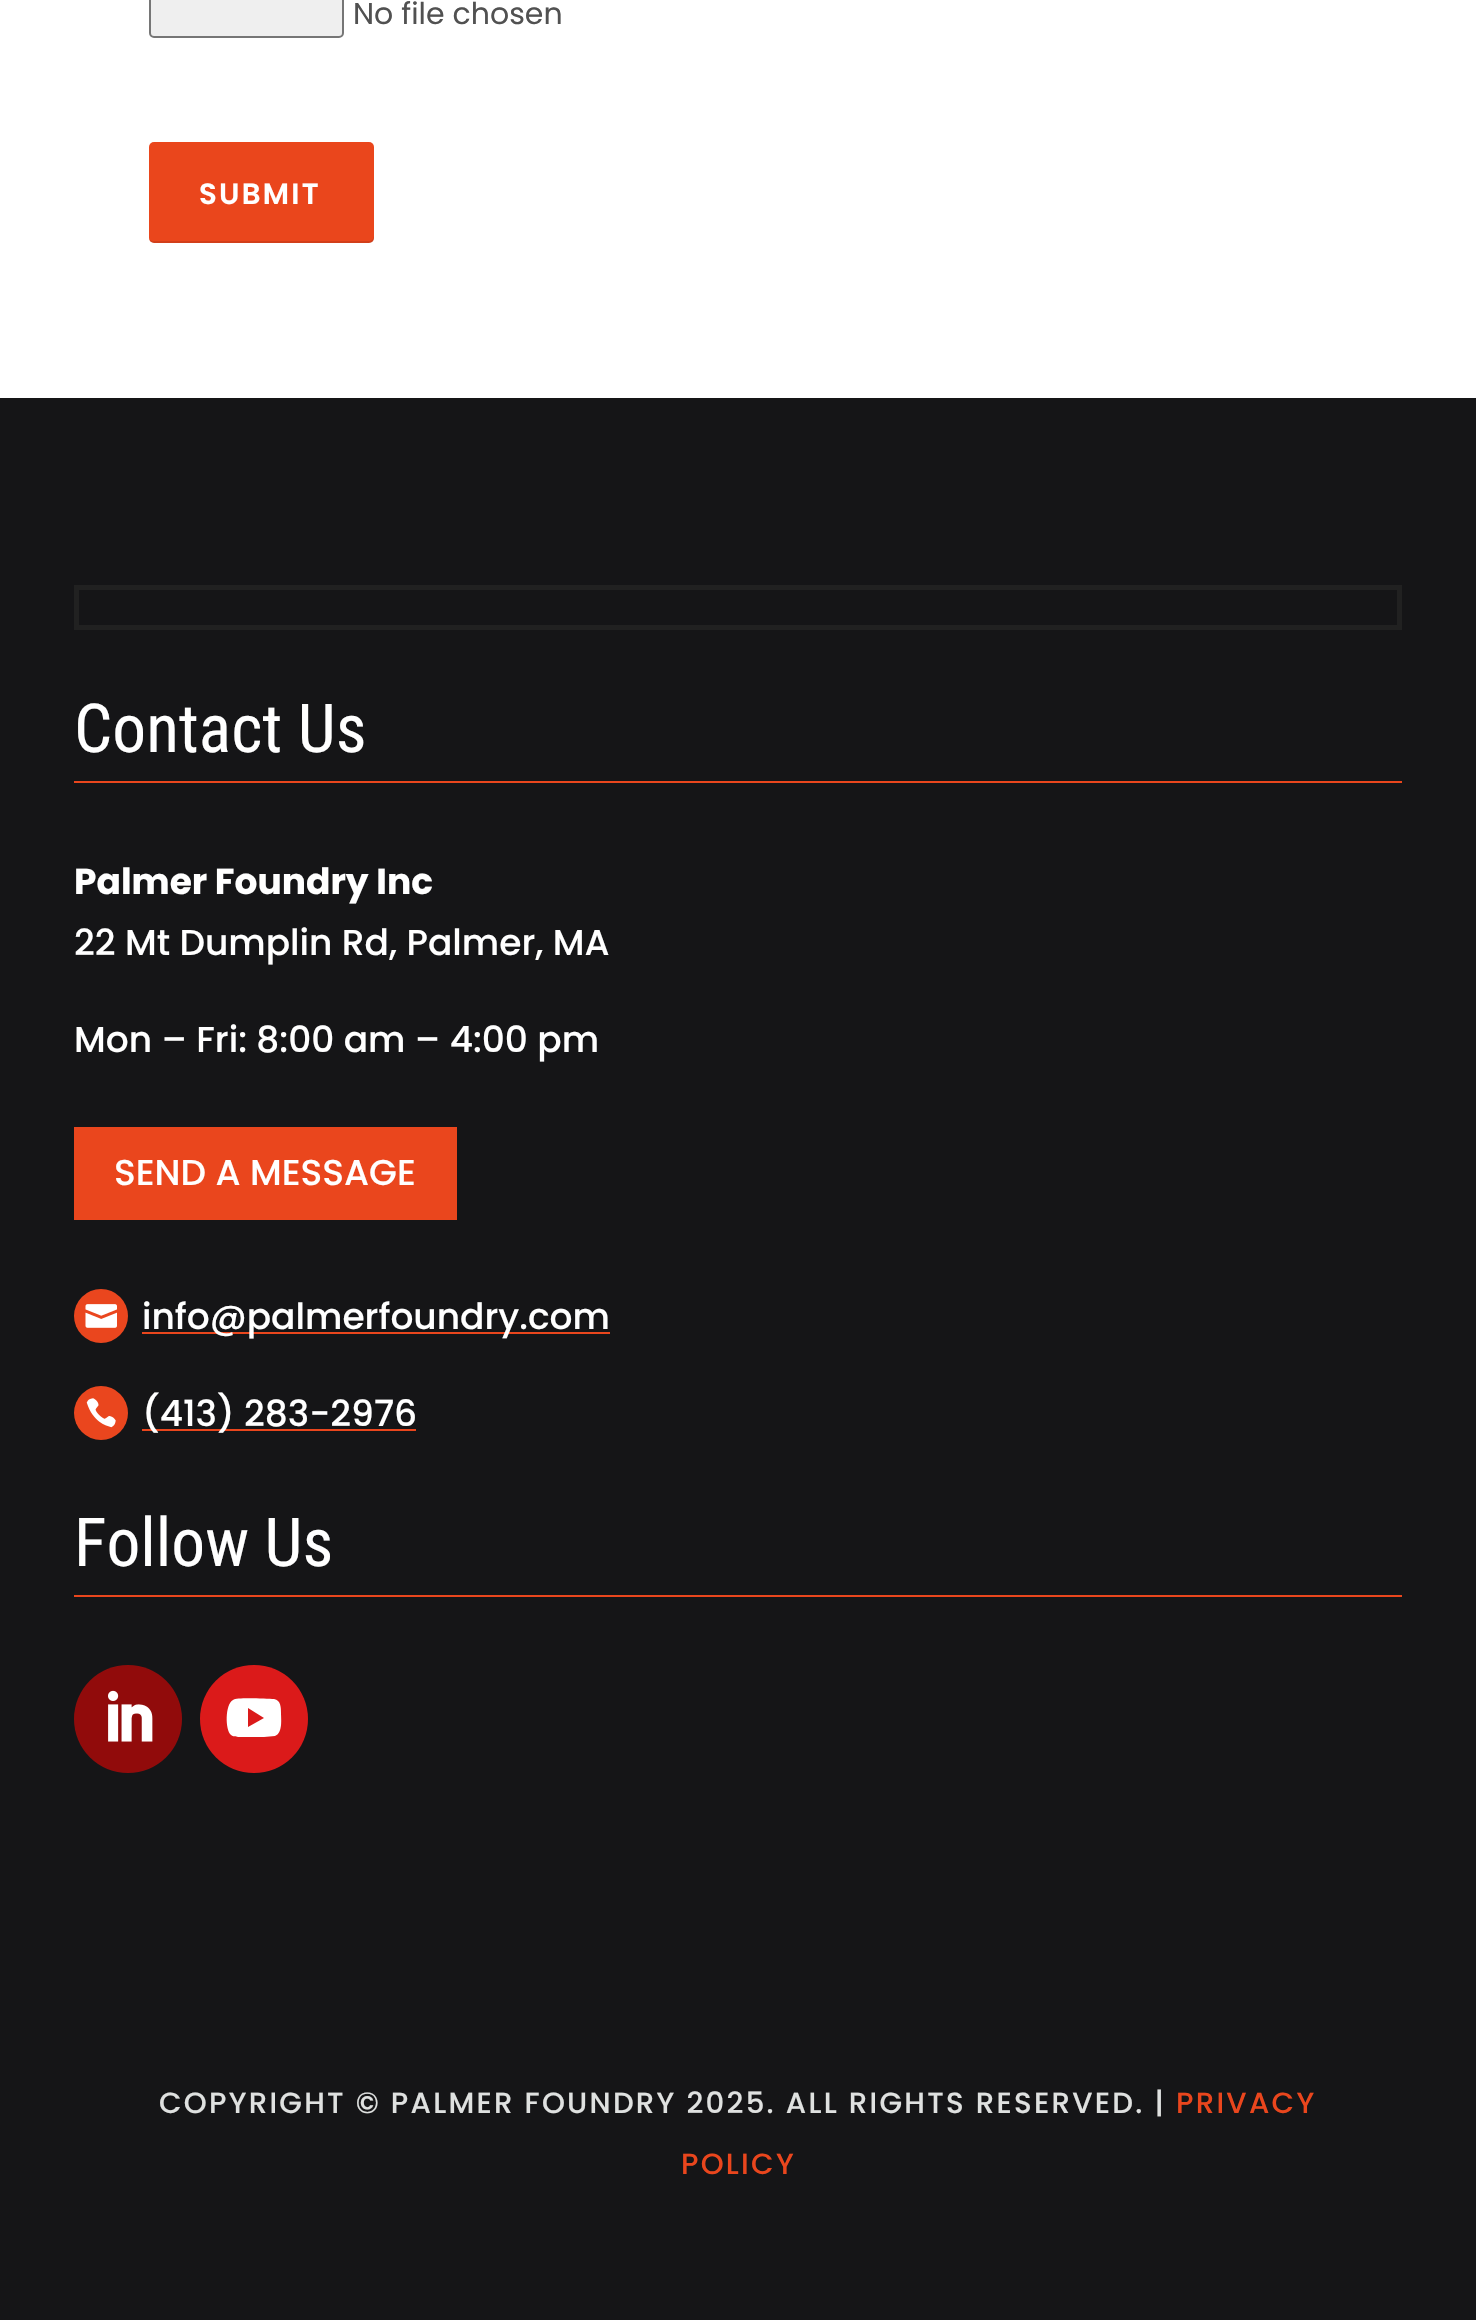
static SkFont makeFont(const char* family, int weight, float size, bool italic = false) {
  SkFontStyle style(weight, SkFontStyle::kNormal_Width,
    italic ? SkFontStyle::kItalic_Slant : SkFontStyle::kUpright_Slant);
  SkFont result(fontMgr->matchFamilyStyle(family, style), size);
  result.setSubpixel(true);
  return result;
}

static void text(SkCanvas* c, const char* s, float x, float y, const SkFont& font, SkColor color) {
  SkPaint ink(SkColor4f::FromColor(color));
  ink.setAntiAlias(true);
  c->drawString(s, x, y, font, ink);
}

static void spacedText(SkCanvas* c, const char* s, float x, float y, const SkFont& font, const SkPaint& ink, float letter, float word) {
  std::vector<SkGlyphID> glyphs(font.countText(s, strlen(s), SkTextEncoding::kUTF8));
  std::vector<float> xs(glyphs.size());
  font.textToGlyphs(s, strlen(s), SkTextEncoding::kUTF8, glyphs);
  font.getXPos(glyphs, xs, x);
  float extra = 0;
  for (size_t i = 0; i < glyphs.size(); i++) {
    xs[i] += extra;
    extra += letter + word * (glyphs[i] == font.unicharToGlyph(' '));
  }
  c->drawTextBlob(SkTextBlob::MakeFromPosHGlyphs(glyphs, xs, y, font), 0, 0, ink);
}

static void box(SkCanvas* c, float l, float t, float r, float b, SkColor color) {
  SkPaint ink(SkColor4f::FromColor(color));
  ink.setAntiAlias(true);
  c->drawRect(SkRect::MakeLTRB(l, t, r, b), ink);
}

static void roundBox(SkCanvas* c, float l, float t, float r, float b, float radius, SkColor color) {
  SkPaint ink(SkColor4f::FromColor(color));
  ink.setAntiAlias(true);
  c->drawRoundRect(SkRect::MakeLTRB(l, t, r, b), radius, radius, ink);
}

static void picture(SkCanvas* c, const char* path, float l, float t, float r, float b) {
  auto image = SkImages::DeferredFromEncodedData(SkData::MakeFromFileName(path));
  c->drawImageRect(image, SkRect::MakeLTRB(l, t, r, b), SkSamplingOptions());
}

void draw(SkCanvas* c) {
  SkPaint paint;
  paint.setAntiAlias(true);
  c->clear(0xffffffff);
  paint.setColor(0xffefefef);
  c->drawRoundRect(SkRect::MakeLTRB(150, -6, 343, 37), 4, 4, paint);
  paint.setStyle(SkPaint::kStroke_Style);
  paint.setStrokeWidth(2);
  paint.setColor(0xff767676);
  c->drawRoundRect(SkRect::MakeLTRB(150, -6, 343, 37), 4, 4, paint);
  SkFont face1 = makeFont("Poppins", 400, 30);
  text(c, "No file chosen", 353, 24, face1, 0xff515151);
  roundBox(c, 149, 142, 374, 243, 5, 0xffea461c);
  paint.setStyle(SkPaint::kFill_Style);
  paint.setColor(0x1a000000);
  c->drawPath(SkPathBuilder().moveTo(149, 239).cubicTo(150, 241, 152, 243, 154, 243).lineTo(369, 243).cubicTo(372, 243, 374, 241, 374, 238).lineTo(374, 236).cubicTo(374, 239, 371, 241, 369, 241).lineTo(153, 241).cubicTo(152, 241, 150, 240, 149, 239).close().detach(), paint);
  SkFont face2 = makeFont("Poppins", 600, 29.25f);
  paint.setColor(0xffffffff);
  spacedText(c, "SUBMIT", 199, 204, face2, paint, 2.25f, 0);
  box(c, 0, 398, 1476, 2320, 0xff151517);
  paint.setStyle(SkPaint::kStroke_Style);
  paint.setStrokeWidth(5);
  paint.setColor(0xff212121);
  c->drawRect(SkRect::MakeLTRB(76.5f, 587.5f, 1399.5f, 627.5f), paint);
  box(c, 74, 781, 1402, 783, 0xffea461d);
  SkFont face3 = makeFont("Roboto Condensed", 400, 67.5f);
  text(c, "Contact Us", 74, 752, face3, 0xffffffff);
  SkFont face4 = makeFont("Poppins", 700, 36);
  text(c, "Palmer Foundry Inc", 74, 894, face4, 0xffffffff);
  SkFont face5 = makeFont("Poppins", 500, 36);
  text(c, "22 Mt Dumplin Rd, Palmer, MA", 74, 955, face5, 0xffffffff);
  text(c, "Mon – Fri: 8:00 am – 4:00 pm", 74, 1052, face5, 0xffffffff);
  box(c, 74, 1127, 457, 1220, 0xffea461d);
  text(c, "SEND A MESSAGE", 114, 1185, face5, 0xffffffff);
  paint.setStyle(SkPaint::kFill_Style);
  paint.setColor(0xffea461e);
  c->drawCircle(101, 1316, 27, paint);
  picture(c, "img_01.png", 85, 1304, 117, 1328);
  box(c, 142, 1332, 610, 1334, 0xffea461d);
  text(c, "info@palmerfoundry.com", 142, 1329, face5, 0xffffffff);
  c->drawCircle(101, 1413, 27, paint);
  picture(c, "img_02.png", 86, 1398, 116, 1428);
  box(c, 142, 1429, 416, 1431, 0xffea461d);
  text(c, "(413) 283-2976", 142, 1426, face5, 0xffffffff);
  box(c, 74, 1595, 1402, 1597, 0xffea461d);
  text(c, "Follow Us", 74, 1566, face3, 0xffffffff);
  paint.setColor(0xff910b0b);
  c->drawCircle(128, 1719, 54, paint);
  picture(c, "img_03.png", 108, 1690, 153, 1742);
  paint.setColor(0xffdb1a1a);
  c->drawCircle(254, 1719, 54, paint);
  paint.setColor(0xffffffff);
  c->drawPath(SkPathBuilder().moveTo(274, 1699).cubicTo(267, 1699, 237, 1697, 233, 1700).cubicTo(225, 1704, 225, 1730, 231, 1735).cubicTo(233, 1737, 236, 1736, 238, 1737).lineTo(264, 1737).lineTo(275, 1736).cubicTo(283, 1733, 281, 1719, 281, 1713).cubicTo(281, 1708, 281, 1700, 274, 1699).close().moveTo(248, 1727).lineTo(248, 1708).lineTo(264, 1718).close().detach(), paint);
  SkFont face6 = makeFont("Poppins", 500, 29.25f);
  paint.setColor(0xffdfe1e0);
  spacedText(c, "COPYRIGHT © PALMER FOUNDRY 2025. ALL RIGHTS RESERVED. |", 159, 2113, face6, paint, 2.25f, 0);
  paint.setColor(0xffea461d);
  spacedText(c, "PRIVACY", 1176, 2113, face6, paint, 2.25f, 0);
  spacedText(c, "POLICY", 681, 2174, face6, paint, 2.25f, 0);
}
